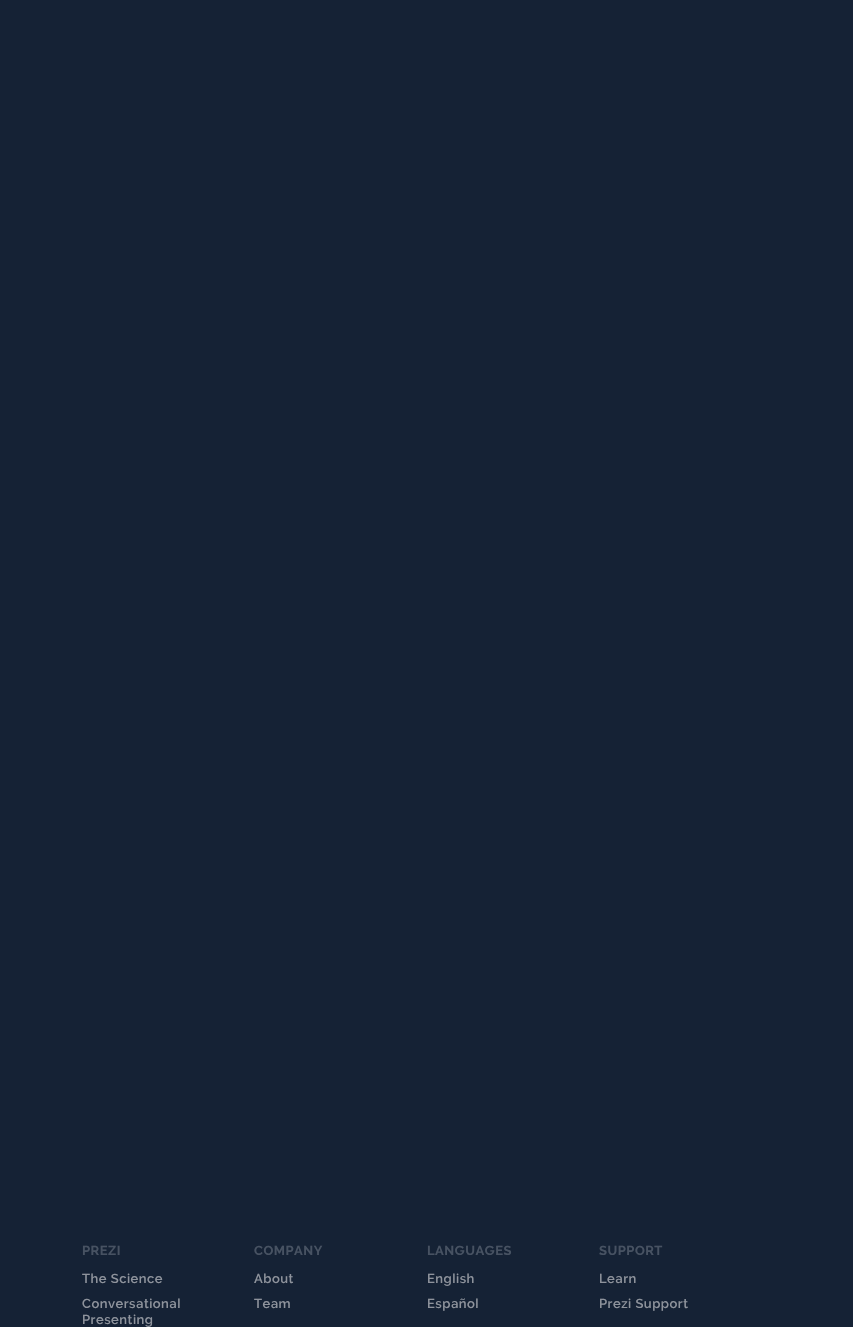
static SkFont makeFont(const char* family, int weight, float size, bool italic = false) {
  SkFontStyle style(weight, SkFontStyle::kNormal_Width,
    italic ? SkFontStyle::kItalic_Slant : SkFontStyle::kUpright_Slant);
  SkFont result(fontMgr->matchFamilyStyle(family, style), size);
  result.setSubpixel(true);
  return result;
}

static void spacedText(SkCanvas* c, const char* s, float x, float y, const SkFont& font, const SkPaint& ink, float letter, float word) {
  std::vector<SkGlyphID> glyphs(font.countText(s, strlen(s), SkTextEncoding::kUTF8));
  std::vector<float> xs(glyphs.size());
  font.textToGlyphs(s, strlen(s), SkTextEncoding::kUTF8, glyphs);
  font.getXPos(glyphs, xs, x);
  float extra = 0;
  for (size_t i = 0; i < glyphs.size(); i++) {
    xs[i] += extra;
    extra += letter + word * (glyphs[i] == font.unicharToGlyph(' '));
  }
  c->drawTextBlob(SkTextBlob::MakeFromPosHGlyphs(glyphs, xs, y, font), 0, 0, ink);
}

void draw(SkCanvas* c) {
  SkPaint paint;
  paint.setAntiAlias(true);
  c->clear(0xff152235);
  SkFont face1 = makeFont("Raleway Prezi", 700, 13);
  paint.setColor(0xff475262);
  spacedText(c, "PREZI", 82, 1255, face1, paint, 0.5f, 0);
  SkFont face2 = makeFont("Raleway Prezi", 600, 13);
  paint.setColor(0xff8e939c);
  spacedText(c, "The Science", 82, 1283, face2, paint, 0.5f, 0);
  spacedText(c, "Conversational", 82, 1308, face2, paint, 0.5f, 0);
  spacedText(c, "Presenting", 82, 1324, face2, paint, 0.5f, 0);
  paint.setColor(0xff475262);
  spacedText(c, "COMPANY", 254, 1255, face1, paint, 0.5f, 0);
  paint.setColor(0xff8e939c);
  spacedText(c, "About", 254, 1283, face2, paint, 0.5f, 0);
  spacedText(c, "Team", 254, 1308, face2, paint, 0.5f, 0);
  paint.setColor(0xff475262);
  spacedText(c, "LANGUAGES", 427, 1255, face1, paint, 0.5f, 0);
  paint.setColor(0xff8e939c);
  spacedText(c, "English", 427, 1283, face2, paint, 0.5f, 0);
  spacedText(c, "Español", 427, 1308, face2, paint, 0.5f, 0);
  paint.setColor(0xff475262);
  spacedText(c, "SUPPORT", 599, 1255, face1, paint, 0.5f, 0);
  paint.setColor(0xff8e939c);
  spacedText(c, "Learn", 599, 1283, face2, paint, 0.5f, 0);
  spacedText(c, "Prezi Support", 599, 1308, face2, paint, 0.5f, 0);
}
